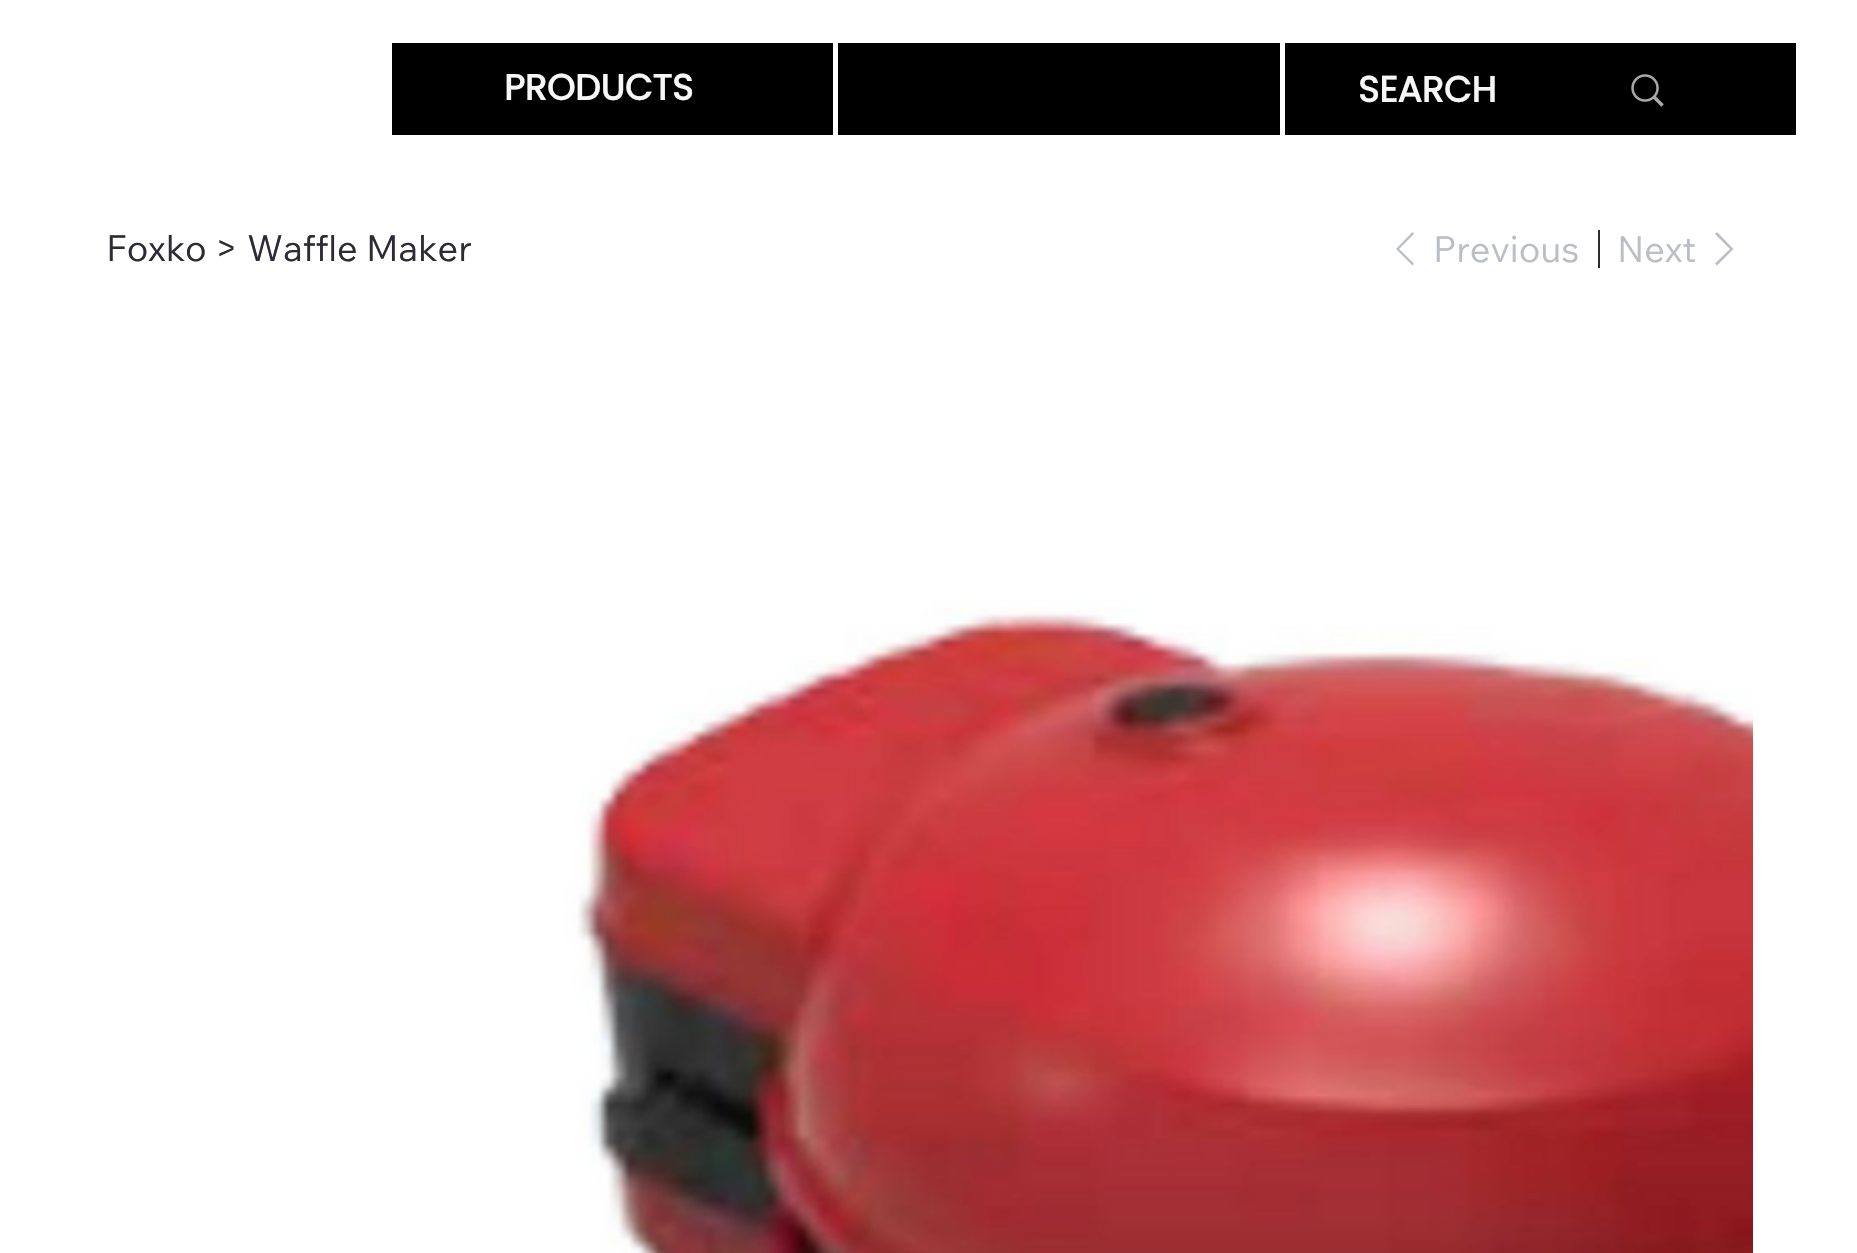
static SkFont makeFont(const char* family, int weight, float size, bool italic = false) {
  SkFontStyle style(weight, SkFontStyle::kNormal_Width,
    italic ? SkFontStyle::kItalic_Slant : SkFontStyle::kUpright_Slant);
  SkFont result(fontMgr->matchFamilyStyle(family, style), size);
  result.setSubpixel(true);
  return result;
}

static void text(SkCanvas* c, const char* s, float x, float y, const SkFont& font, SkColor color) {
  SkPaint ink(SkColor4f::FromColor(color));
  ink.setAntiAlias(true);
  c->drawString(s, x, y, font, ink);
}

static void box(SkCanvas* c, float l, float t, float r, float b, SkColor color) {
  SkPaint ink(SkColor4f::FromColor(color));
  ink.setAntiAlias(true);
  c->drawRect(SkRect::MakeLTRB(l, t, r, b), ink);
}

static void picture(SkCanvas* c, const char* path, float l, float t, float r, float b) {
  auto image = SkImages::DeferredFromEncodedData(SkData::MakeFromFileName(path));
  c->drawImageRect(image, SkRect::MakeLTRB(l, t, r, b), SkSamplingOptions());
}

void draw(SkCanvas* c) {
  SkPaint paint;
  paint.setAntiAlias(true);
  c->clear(0xffffffff);
  box(c, 392, 43, 1796, 135, 0xff000000);
  box(c, 1280, 41, 1285, 135, 0xffffffff);
  SkFont face1 = makeFont("Poppins", 700, 36);
  text(c, "PRODUCTS", 504, 100, face1, 0xfff7f7f7);
  box(c, 833, 43, 838, 135, 0xffffffff);
  text(c, "SEARCH", 1358, 102, face1, 0xfff7f7f7);
  picture(c, "img_01.png", 1631, 74, 1664, 107);
  SkFont face2 = makeFont("Wix Madefor Text", 400, 36);
  text(c, "Foxko", 106, 261, face2, 0xff2f2b36);
  text(c, ">", 215, 261, face2, 0xff2f2b36);
  text(c, "Waffle Maker", 247, 261, face2, 0xff2f2b36);
  paint.setColor(0xffbbbdc8);
  c->drawPath(SkPathBuilder(SkPathFillType::kEvenOdd).moveTo(1412.5f, 232).lineTo(1414, 234).lineTo(1399, 249).lineTo(1414, 263.5f).lineTo(1412.5f, 265.5f).lineTo(1396, 249).close().detach(), paint);
  text(c, "Previous", 1433, 262, face2, 0xffbbbdc8);
  box(c, 1598, 230, 1600, 268, 0xff2f2b36);
  text(c, "Next", 1617, 262, face2, 0xffbbbdc8);
  c->drawPath(SkPathBuilder(SkPathFillType::kEvenOdd).moveTo(1717, 265.5f).lineTo(1715, 263.5f).lineTo(1730, 249).lineTo(1715, 234).lineTo(1717, 232).lineTo(1733.5f, 249).close().detach(), paint);
  picture(c, "img_02.png", 106, 367, 1753, 1253);
}
